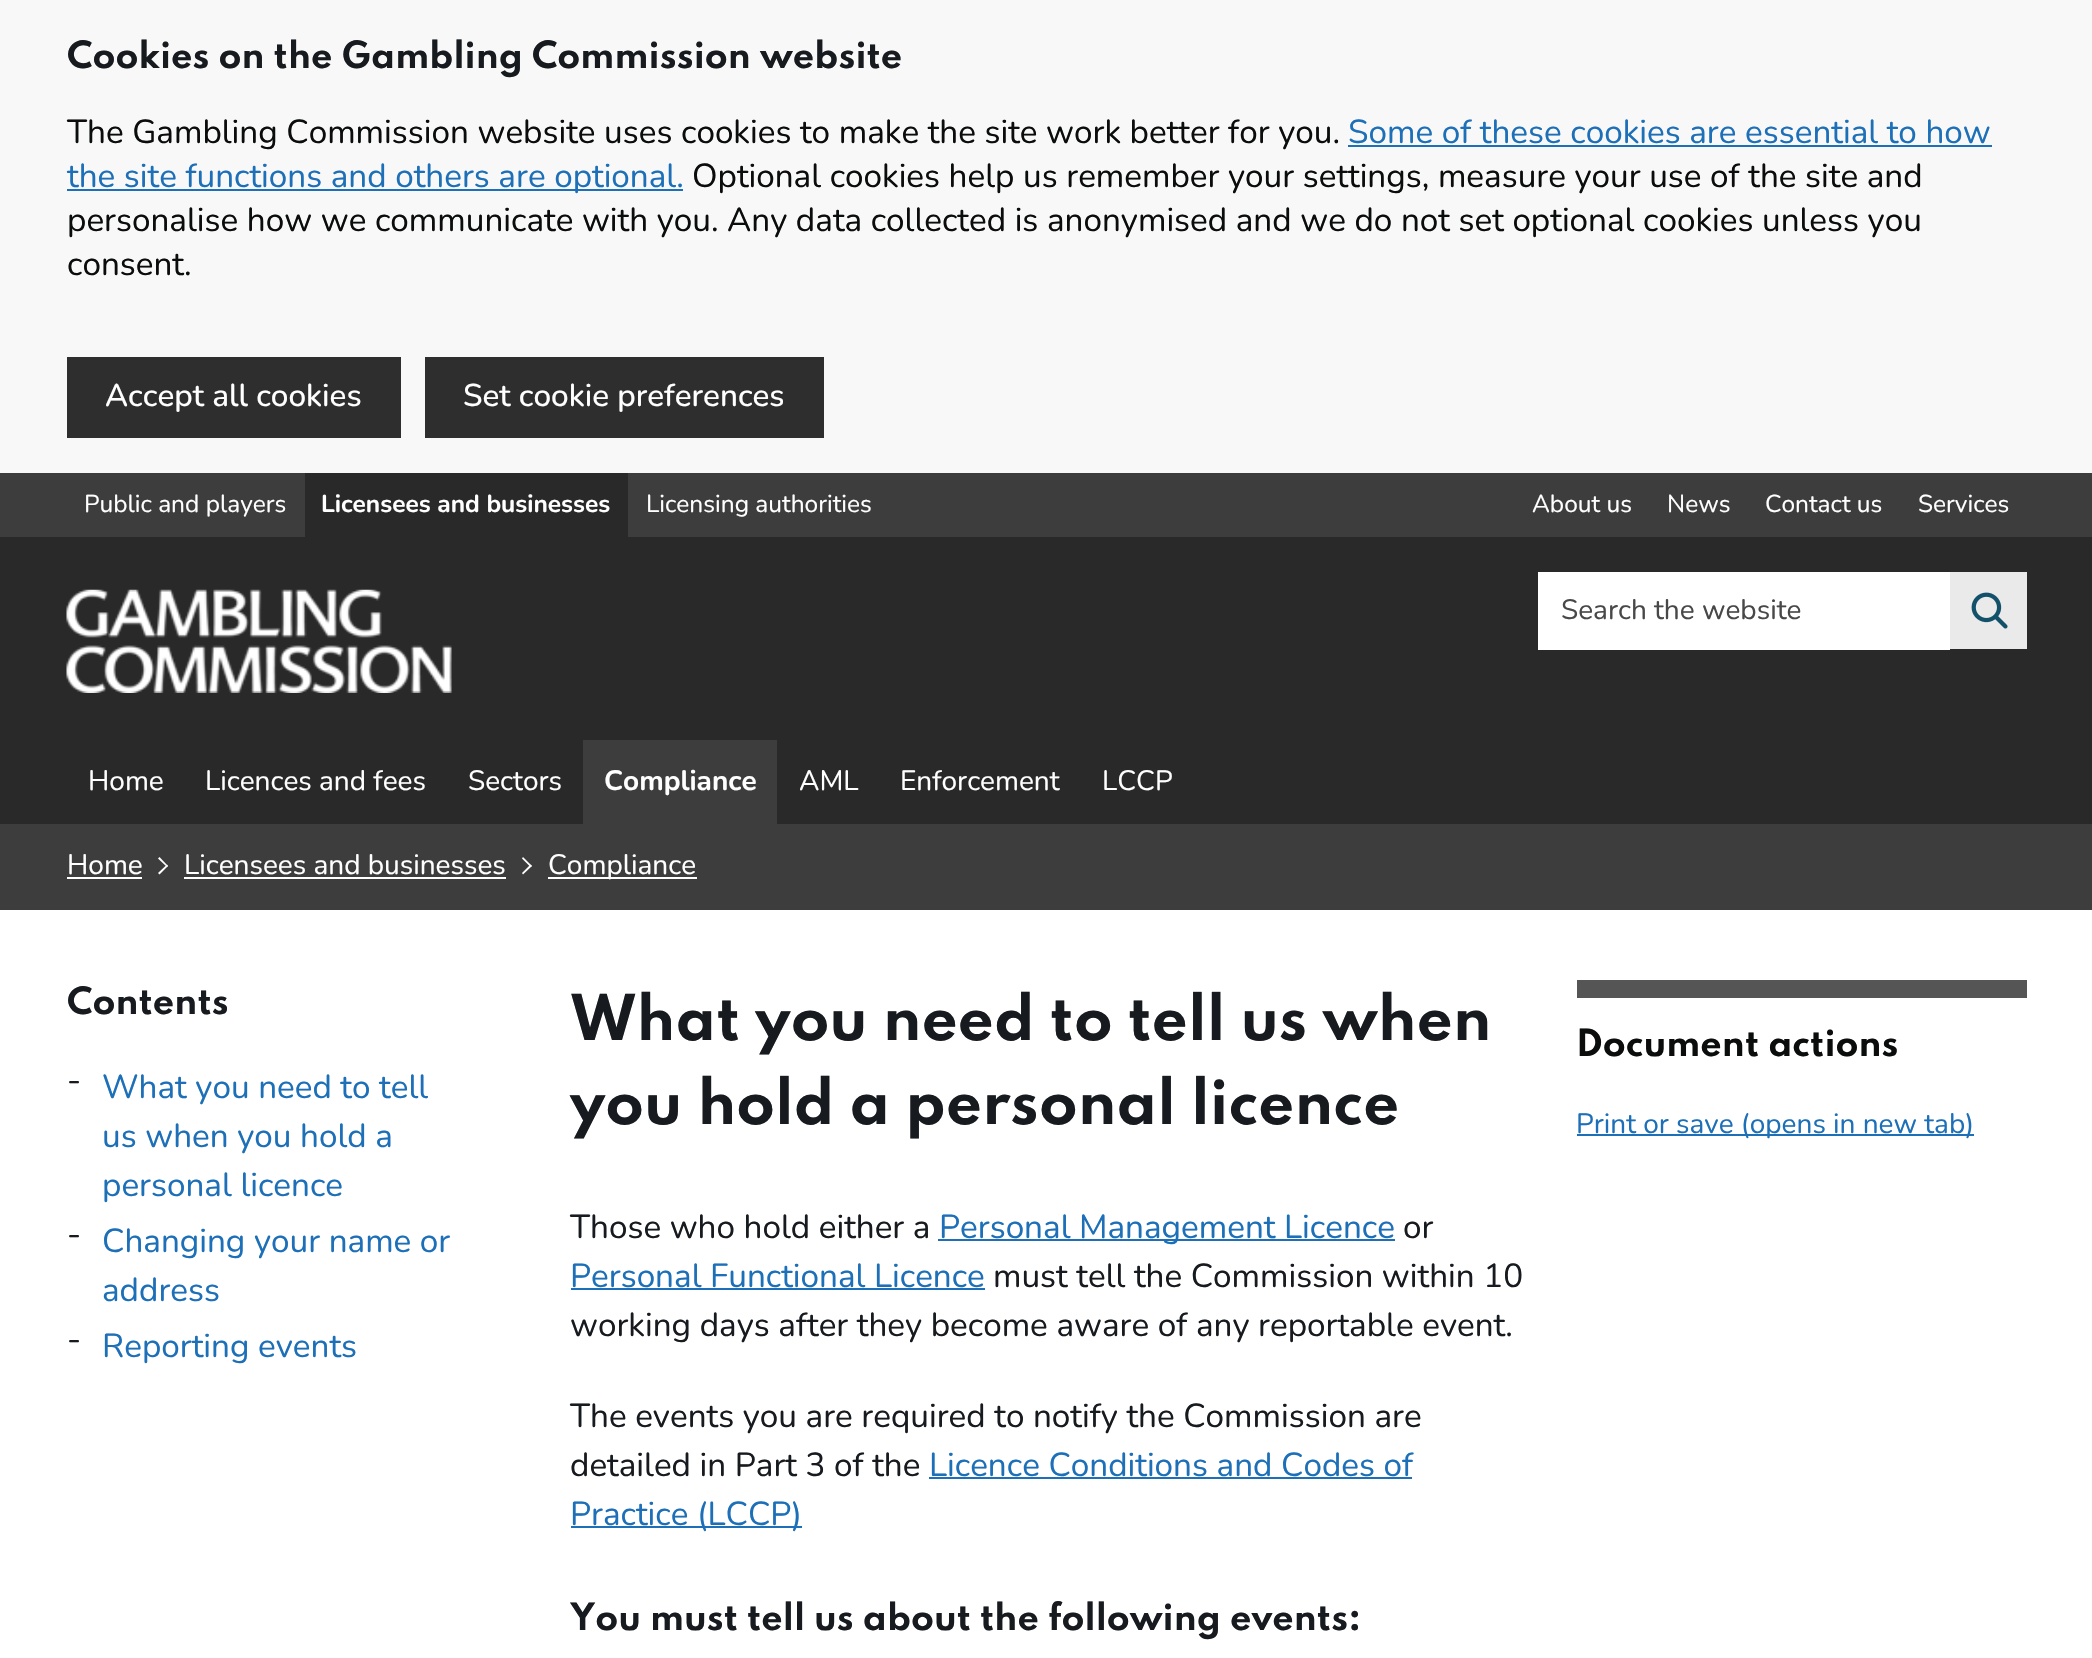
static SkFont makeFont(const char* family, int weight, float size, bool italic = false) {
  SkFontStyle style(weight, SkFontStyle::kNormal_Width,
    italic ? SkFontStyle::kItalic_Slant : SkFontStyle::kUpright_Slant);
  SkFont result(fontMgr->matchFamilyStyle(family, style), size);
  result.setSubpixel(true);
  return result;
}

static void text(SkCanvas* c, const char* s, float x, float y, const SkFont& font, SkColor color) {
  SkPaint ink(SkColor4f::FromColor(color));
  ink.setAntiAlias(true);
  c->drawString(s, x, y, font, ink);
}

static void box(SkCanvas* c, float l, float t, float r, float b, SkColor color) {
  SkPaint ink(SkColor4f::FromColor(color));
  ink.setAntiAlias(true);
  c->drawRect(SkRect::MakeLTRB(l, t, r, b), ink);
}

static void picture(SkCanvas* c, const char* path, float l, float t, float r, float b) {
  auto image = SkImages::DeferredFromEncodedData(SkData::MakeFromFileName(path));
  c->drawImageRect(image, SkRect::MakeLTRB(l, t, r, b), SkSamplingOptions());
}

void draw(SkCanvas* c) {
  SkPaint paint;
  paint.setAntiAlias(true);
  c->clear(0xffffffff);
  box(c, 0, 0, 2092, 473, 0xfff8f8f8);
  SkFont face1 = makeFont("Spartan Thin", 700, 33.25f);
  text(c, "Cookies on the Gambling Commission website", 67, 68, face1, 0xff171b1f);
  SkFont face2 = makeFont("Nunito", 400, 33.25f);
  text(c, "The Gambling Commission website uses cookies to make the site work better for you.", 67, 143, face2, 0xff0b0c0c);
  text(c, "Some of these cookies are essential to how", 1348, 143, face2, 0xff1d70b8);
  box(c, 1348, 145, 1992, 147, 0xff1d70b8);
  box(c, 67, 189, 683, 191, 0xff1d70b8);
  text(c, "the site functions and others are optional.", 67, 187, face2, 0xff1d70b8);
  text(c, "Optional cookies help us remember your settings, measure your use of the site and", 692, 187, face2, 0xff0b0c0c);
  text(c, "personalise how we communicate with you. Any data collected is anonymised and we do not set optional cookies unless you", 67, 231, face2, 0xff0b0c0c);
  text(c, "consent.", 67, 275, face2, 0xff0b0c0c);
  box(c, 67, 357, 401, 438, 0xff2e2e2e);
  SkFont face3 = makeFont("Nunito", 500, 31.5f);
  text(c, "Accept all cookies", 105, 406, face3, 0xffffffff);
  box(c, 425, 357, 824, 438, 0xff2e2e2e);
  text(c, "Set cookie preferences", 463, 406, face3, 0xffffffff);
  box(c, 0, 473, 2092, 537, 0xff3d3d3d);
  SkFont face4 = makeFont("Nunito", 400, 24.5f);
  text(c, "Public and players", 84, 512, face4, 0xffffffff);
  box(c, 305, 473, 628, 537, 0xff292929);
  SkFont face5 = makeFont("Nunito", 700, 24.5f);
  text(c, "Licensees and businesses", 321, 512, face5, 0xffffffff);
  text(c, "Licensing authorities", 646, 512, face4, 0xffffffff);
  text(c, "About us", 1532, 512, face4, 0xffffffff);
  text(c, "News", 1667, 512, face4, 0xffffffff);
  text(c, "Contact us", 1765, 512, face4, 0xffffffff);
  text(c, "Services", 1918, 512, face4, 0xffffffff);
  box(c, 0, 537, 2092, 824, 0xff292929);
  picture(c, "img_01.png", 66, 589, 452, 693);
  box(c, 1538, 572, 1950, 650, 0xffffffff);
  SkFont face6 = makeFont("Nunito", 400, 28);
  text(c, "Search the website", 1561, 619, face6, 0xff484848);
  box(c, 1950, 572, 2027, 649, 0xffeaeaea);
  picture(c, "img_02.png", 1971, 592, 2008, 629);
  text(c, "Home", 88, 790, face6, 0xffffffff);
  text(c, "Licences and fees", 205, 790, face6, 0xffffffff);
  text(c, "Sectors", 468, 790, face6, 0xffffffff);
  box(c, 583, 740, 777, 824, 0xff3d3d3d);
  SkFont face7 = makeFont("Nunito", 700, 28);
  text(c, "Compliance", 604, 790, face7, 0xffffffff);
  text(c, "AML", 799, 790, face6, 0xffffffff);
  text(c, "Enforcement", 900, 790, face6, 0xffffffff);
  text(c, "LCCP", 1102, 790, face6, 0xffffffff);
  box(c, 0, 824, 2092, 910, 0xff3d3d3d);
  text(c, "Home", 67, 874, face6, 0xffffffff);
  box(c, 67, 877, 142, 879, 0xffffffff);
  paint.setColor(0xffffffff);
  c->drawPath(SkPathBuilder().moveTo(159.5f, 857).lineTo(168, 866).lineTo(167, 867).lineTo(158, 858.5f).close().detach(), paint);
  c->drawPath(SkPathBuilder().moveTo(167, 864.5f).lineTo(168, 866).lineTo(159.5f, 874.5f).lineTo(158, 873).close().detach(), paint);
  text(c, "Licensees and businesses", 184, 874, face6, 0xffffffff);
  box(c, 184, 877, 506, 879, 0xffffffff);
  c->drawPath(SkPathBuilder().moveTo(523, 857).lineTo(532, 866).lineTo(530.5f, 867).lineTo(522, 858.5f).close().detach(), paint);
  c->drawPath(SkPathBuilder().moveTo(530.5f, 864.5f).lineTo(532, 866).lineTo(523, 874.5f).lineTo(522, 873).close().detach(), paint);
  box(c, 548, 877, 697, 879, 0xffffffff);
  text(c, "Compliance", 548, 874, face6, 0xffffffff);
  text(c, "Contents", 67, 1014, face1, 0xff171b1f);
  text(c, "-", 67, 1091, face2, 0xff171b1f);
  text(c, "What you need to tell", 102, 1098, face2, 0xff1d70b8);
  text(c, "us when you hold a", 102, 1147, face2, 0xff1d70b8);
  text(c, "personal licence", 102, 1196, face2, 0xff1d70b8);
  text(c, "-", 67, 1245, face2, 0xff171b1f);
  text(c, "Changing your name or", 102, 1252, face2, 0xff1d70b8);
  text(c, "address", 102, 1301, face2, 0xff1d70b8);
  text(c, "-", 67, 1350, face2, 0xff171b1f);
  text(c, "Reporting events", 102, 1357, face2, 0xff1d70b8);
  SkFont face8 = makeFont("Spartan Thin", 700, 56);
  text(c, "What you need to tell us when", 570, 1040, face8, 0xff171b1f);
  text(c, "you hold a personal licence", 570, 1124, face8, 0xff171b1f);
  text(c, "Those who hold either a", 570, 1238, face2, 0xff171b1f);
  box(c, 938, 1239, 1395, 1241, 0xff1d70b8);
  text(c, "Personal Management Licence", 939, 1238, face2, 0xff1d70b8);
  text(c, "or", 1403, 1238, face2, 0xff171b1f);
  text(c, "Personal Functional Licence", 570, 1287, face2, 0xff1d70b8);
  box(c, 571, 1288, 985, 1290, 0xff1d70b8);
  text(c, "must tell the Commission within 10", 993, 1287, face2, 0xff171b1f);
  text(c, "working days after they become aware of any reportable event.", 570, 1336, face2, 0xff171b1f);
  text(c, "The events you are required to notify the Commission are", 570, 1427, face2, 0xff171b1f);
  text(c, "detailed in Part 3 of the", 570, 1476, face2, 0xff171b1f);
  text(c, "Licence Conditions and Codes of", 929, 1476, face2, 0xff1d70b8);
  box(c, 929, 1477, 1412, 1479, 0xff1d70b8);
  box(c, 571, 1526, 802, 1528, 0xff1d70b8);
  text(c, "Practice (LCCP)", 570, 1525, face2, 0xff1d70b8);
  text(c, "You must tell us about the following events:", 570, 1630, face1, 0xff171b1f);
  box(c, 1577, 980, 2027, 998, 0xff555555);
  text(c, "Document actions", 1576, 1056, face1, 0xff0b0c0c);
  box(c, 1577, 1134, 1974, 1136, 0xff1d70b8);
  text(c, "Print or save (opens in new tab)", 1576, 1133, face6, 0xff1d70b8);
}
